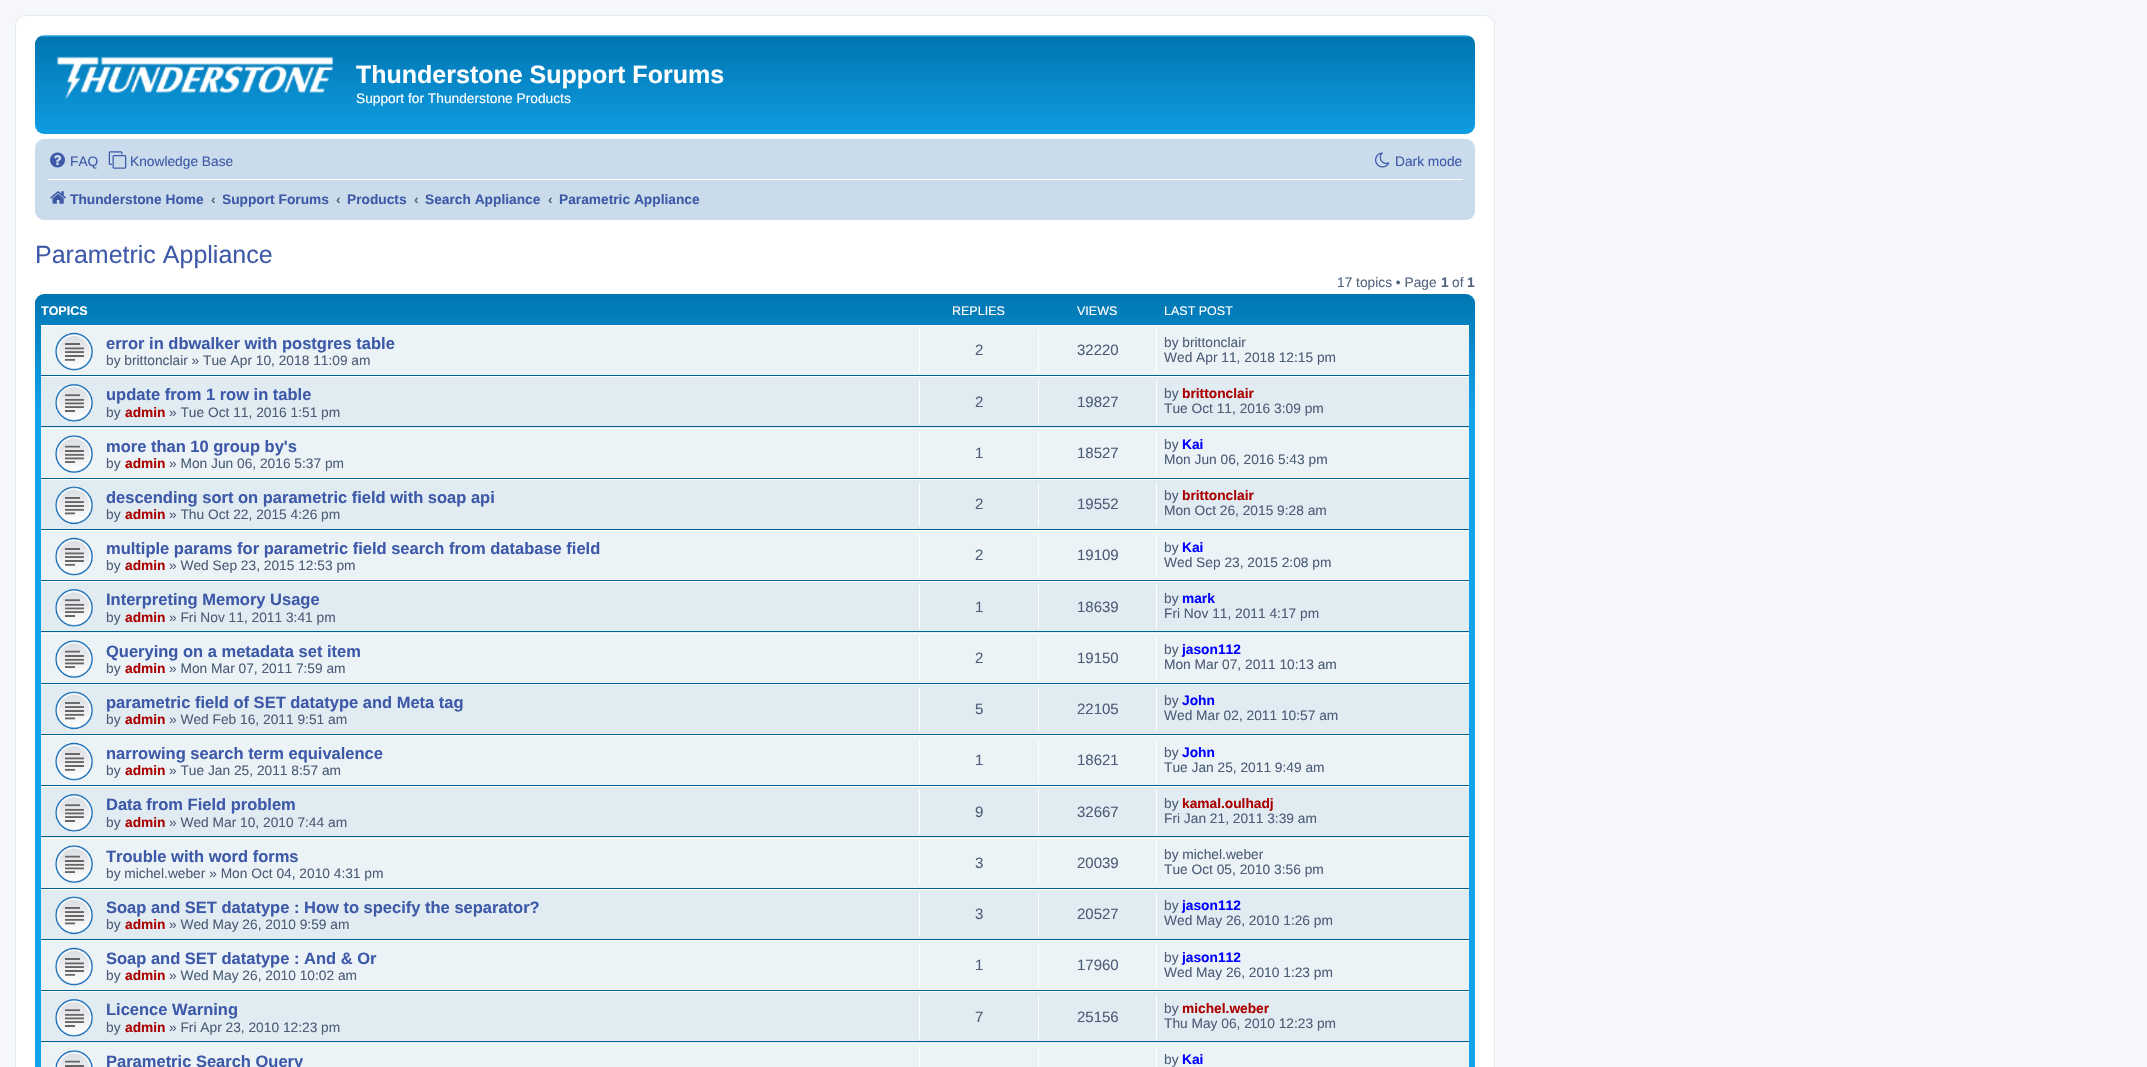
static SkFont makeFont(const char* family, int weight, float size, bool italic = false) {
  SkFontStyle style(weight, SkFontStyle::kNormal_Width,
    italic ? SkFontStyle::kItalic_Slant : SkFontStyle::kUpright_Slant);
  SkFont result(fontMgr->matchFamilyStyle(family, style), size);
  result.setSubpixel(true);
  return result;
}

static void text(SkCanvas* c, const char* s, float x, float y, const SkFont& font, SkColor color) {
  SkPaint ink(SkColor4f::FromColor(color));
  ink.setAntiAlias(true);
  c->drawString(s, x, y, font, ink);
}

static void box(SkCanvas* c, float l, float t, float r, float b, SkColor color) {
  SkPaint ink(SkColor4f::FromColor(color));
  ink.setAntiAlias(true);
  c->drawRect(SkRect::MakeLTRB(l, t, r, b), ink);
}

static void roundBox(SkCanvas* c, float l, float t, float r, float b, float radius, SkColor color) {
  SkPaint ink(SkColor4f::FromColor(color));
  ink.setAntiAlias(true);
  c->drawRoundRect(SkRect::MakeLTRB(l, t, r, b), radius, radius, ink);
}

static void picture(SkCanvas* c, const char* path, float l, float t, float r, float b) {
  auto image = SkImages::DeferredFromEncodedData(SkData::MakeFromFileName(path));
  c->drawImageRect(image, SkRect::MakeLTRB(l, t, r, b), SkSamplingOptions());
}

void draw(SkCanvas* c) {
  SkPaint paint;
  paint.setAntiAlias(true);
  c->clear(0xfff5f7fa);
  paint.setColor(0xffffffff);
  c->drawRoundRect(SkRect::MakeLTRB(15.5f, 15.5f, 1494.5f, 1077.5f), 9.5f, 9.5f, paint);
  paint.setStyle(SkPaint::kStroke_Style);
  paint.setStrokeWidth(1);
  paint.setColor(0xffe6e9ed);
  c->drawRoundRect(SkRect::MakeLTRB(15.5f, 15.5f, 1494.5f, 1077.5f), 9.5f, 9.5f, paint);
  paint.setStyle(SkPaint::kFill_Style);
  {
    const SkColor colors[] = {0xff6aceff, 0xff0076b1, 0xff12a3eb};
    const float stops[] = {0, 0.02f, 1};
    const SkPoint ends[] = {{755, 35}, {755, 150}};
    paint.setShader(SkGradientShader::MakeLinear(ends, colors, stops, 3, SkTileMode::kClamp));
    paint.setAlpha(255);
  }
  c->drawRoundRect(SkRect::MakeLTRB(35, 35, 1475, 134), 9, 9, paint);
  picture(c, "img_01.png", 56, 56, 334, 100);
  SkFont face1 = makeFont("Liberation Sans", 700, 25);
  text(c, "Thunderstone Support Forums", 356, 83, face1, 0xffffffff);
  SkFont face2 = makeFont("Liberation Sans", 400, 13.75f);
  text(c, "Support for Thunderstone Products", 356, 103, face2, 0xffffffff);
  roundBox(c, 35, 139, 1475, 220, 9, 0xffcadceb);
  picture(c, "img_02.png", 50, 152, 65, 168);
  text(c, "FAQ", 70, 166, face2, 0xff3d59a8);
  picture(c, "img_03.png", 108, 151, 127, 169);
  text(c, "Knowledge Base", 130, 166, face2, 0xff3d59a8);
  picture(c, "img_04.png", 1375, 152, 1390, 168);
  text(c, "Dark mode", 1395, 166, face2, 0xff3d59a8);
  box(c, 48, 179, 1463, 180, 0xffffffff);
  picture(c, "img_05.png", 50, 191, 66, 204);
  SkFont face3 = makeFont("Liberation Sans", 700, 13.75f);
  text(c, "Thunderstone Home", 70, 204, face3, 0xff3d59a8);
  text(c, "‹", 211, 204, face3, 0xff536482);
  c->save();
  c->clipRect(SkRect::MakeLTRB(223, 184, 329, 214));
  text(c, "Support Forums", 222, 204, face3, 0xff3d59a8);
  c->restore();
  text(c, "‹", 336, 204, face3, 0xff536482);
  text(c, "Products", 347, 204, face3, 0xff3d59a8);
  text(c, "‹", 414, 204, face3, 0xff536482);
  text(c, "Search Appliance", 425, 204, face3, 0xff3d59a8);
  text(c, "‹", 548, 204, face3, 0xff536482);
  text(c, "Parametric Appliance", 559, 204, face3, 0xff3d59a8);
  SkFont face4 = makeFont("Liberation Sans", 400, 25);
  text(c, "Parametric Appliance", 35, 263, face4, 0xff3d59a8);
  text(c, "17 topics • Page", 1337, 287, face2, 0xff536482);
  text(c, "1", 1441, 287, face3, 0xff536482);
  text(c, "of", 1452, 287, face2, 0xff536482);
  text(c, "1", 1467, 287, face3, 0xff536482);
  {
    const SkColor colors[] = {0xff6aceff, 0xff0076b1, 0xff12a3eb, 0xff12a3eb};
    const float stops[] = {0, 0, 0.13f, 1};
    const SkPoint ends[] = {{755, 294}, {755, 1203}};
    paint.setShader(SkGradientShader::MakeLinear(ends, colors, stops, 4, SkTileMode::kClamp));
    paint.setAlpha(255);
  }
  c->drawRoundRect(SkRect::MakeLTRB(35, 294, 1475, 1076), 9, 9, paint);
  SkFont face5 = makeFont("Liberation Sans", 700, 12.5f);
  text(c, "TOPICS", 41, 315, face5, 0xffffffff);
  SkFont face6 = makeFont("Liberation Sans", 400, 12.5f);
  text(c, "REPLIES", 952, 315, face6, 0xffffffff);
  text(c, "VIEWS", 1077, 315, face6, 0xffffffff);
  text(c, "LAST POST", 1164, 315, face6, 0xffffffff);
  box(c, 41, 326, 1469, 375, 0xffecf3f7);
  box(c, 41, 325, 1469, 326, 0xffffffff);
  box(c, 41, 375, 1469, 376, 0xff00608f);
  picture(c, "img_06.png", 55, 332, 93, 371);
  SkFont face7 = makeFont("Liberation Sans", 700, 16.5f);
  text(c, "error in dbwalker with postgres table", 106, 349, face7, 0xff3d59a8);
  text(c, "by brittonclair » Tue Apr 10, 2018 11:09 am", 106, 365, face2, 0xff4c5d77);
  box(c, 919, 329, 920, 373, 0xffffffff);
  SkFont face8 = makeFont("Liberation Sans", 400, 15);
  text(c, "2", 975, 355, face8, 0xff4c5d77);
  box(c, 1038, 329, 1039, 373, 0xffffffff);
  text(c, "32220", 1077, 355, face8, 0xff4c5d77);
  box(c, 1156, 329, 1157, 373, 0xffffffff);
  text(c, "by brittonclair", 1164, 347, face2, 0xff4c5d77);
  text(c, "Wed Apr 11, 2018 12:15 pm", 1164, 362, face2, 0xff4c5d77);
  box(c, 41, 377, 1469, 428, 0xffe1ebf2);
  box(c, 41, 376, 1469, 377, 0xffffffff);
  box(c, 41, 426, 1469, 427, 0xff00608f);
  picture(c, "img_07.png", 55, 383, 93, 422);
  text(c, "update from 1 row in table", 106, 400, face7, 0xff3d59a8);
  text(c, "by", 106, 417, face2, 0xff4c5d77);
  text(c, "admin", 125, 417, face3, 0xffaa0000);
  text(c, "» Tue Oct 11, 2016 1:51 pm", 169, 417, face2, 0xff4c5d77);
  box(c, 919, 380, 920, 424, 0xffffffff);
  text(c, "2", 975, 407, face8, 0xff4c5d77);
  box(c, 1038, 380, 1039, 424, 0xffffffff);
  text(c, "19827", 1077, 407, face8, 0xff4c5d77);
  box(c, 1156, 380, 1157, 424, 0xffffffff);
  text(c, "by", 1164, 398, face2, 0xff4c5d77);
  text(c, "brittonclair", 1182, 398, face3, 0xffaa0000);
  text(c, "Tue Oct 11, 2016 3:09 pm", 1164, 413, face2, 0xff4c5d77);
  box(c, 41, 429, 1469, 478, 0xffecf3f7);
  box(c, 41, 428, 1469, 429, 0xffffffff);
  box(c, 41, 478, 1469, 479, 0xff00608f);
  picture(c, "img_08.png", 55, 435, 93, 473);
  text(c, "more than 10 group by's", 106, 452, face7, 0xff3d59a8);
  text(c, "by", 106, 468, face2, 0xff4c5d77);
  text(c, "admin", 125, 468, face3, 0xffaa0000);
  text(c, "» Mon Jun 06, 2016 5:37 pm", 169, 468, face2, 0xff4c5d77);
  box(c, 919, 431, 920, 475, 0xffffffff);
  text(c, "1", 975, 458, face8, 0xff4c5d77);
  box(c, 1038, 431, 1039, 475, 0xffffffff);
  text(c, "18527", 1077, 458, face8, 0xff4c5d77);
  box(c, 1156, 431, 1157, 475, 0xffffffff);
  text(c, "by", 1164, 449, face2, 0xff4c5d77);
  text(c, "Kai", 1182, 449, face3, 0xff0000ff);
  text(c, "Mon Jun 06, 2016 5:43 pm", 1164, 464, face2, 0xff4c5d77);
  box(c, 41, 480, 1469, 529, 0xffe1ebf2);
  box(c, 41, 479, 1469, 480, 0xffffffff);
  box(c, 41, 529, 1469, 530, 0xff00608f);
  picture(c, "img_09.png", 55, 486, 93, 525);
  text(c, "descending sort on parametric field with soap api", 106, 503, face7, 0xff3d59a8);
  text(c, "by", 106, 519, face2, 0xff4c5d77);
  text(c, "admin", 125, 519, face3, 0xffaa0000);
  text(c, "» Thu Oct 22, 2015 4:26 pm", 169, 519, face2, 0xff4c5d77);
  box(c, 919, 483, 920, 526, 0xffffffff);
  text(c, "2", 975, 509, face8, 0xff4c5d77);
  box(c, 1038, 483, 1039, 526, 0xffffffff);
  text(c, "19552", 1077, 509, face8, 0xff4c5d77);
  box(c, 1156, 483, 1157, 526, 0xffffffff);
  text(c, "by", 1164, 500, face2, 0xff4c5d77);
  text(c, "brittonclair", 1182, 500, face3, 0xffaa0000);
  text(c, "Mon Oct 26, 2015 9:28 am", 1164, 515, face2, 0xff4c5d77);
  box(c, 41, 531, 1469, 580, 0xffecf3f7);
  box(c, 41, 530, 1469, 531, 0xffffffff);
  box(c, 41, 580, 1469, 581, 0xff00608f);
  picture(c, "img_06.png", 55, 537, 93, 576);
  text(c, "multiple params for parametric field search from database field", 106, 554, face7, 0xff3d59a8);
  text(c, "by", 106, 570, face2, 0xff4c5d77);
  text(c, "admin", 125, 570, face3, 0xffaa0000);
  text(c, "» Wed Sep 23, 2015 12:53 pm", 169, 570, face2, 0xff4c5d77);
  box(c, 919, 534, 920, 578, 0xffffffff);
  text(c, "2", 975, 560, face8, 0xff4c5d77);
  box(c, 1038, 534, 1039, 578, 0xffffffff);
  text(c, "19109", 1077, 560, face8, 0xff4c5d77);
  box(c, 1156, 534, 1157, 578, 0xffffffff);
  text(c, "by", 1164, 552, face2, 0xff4c5d77);
  text(c, "Kai", 1182, 552, face3, 0xff0000ff);
  text(c, "Wed Sep 23, 2015 2:08 pm", 1164, 567, face2, 0xff4c5d77);
  box(c, 41, 582, 1469, 633, 0xffe1ebf2);
  box(c, 41, 581, 1469, 582, 0xffffffff);
  box(c, 41, 631, 1469, 632, 0xff00608f);
  picture(c, "img_10.png", 55, 588, 93, 627);
  text(c, "Interpreting Memory Usage", 106, 605, face7, 0xff3d59a8);
  text(c, "by", 106, 622, face2, 0xff4c5d77);
  text(c, "admin", 125, 622, face3, 0xffaa0000);
  text(c, "» Fri Nov 11, 2011 3:41 pm", 169, 622, face2, 0xff4c5d77);
  box(c, 919, 585, 920, 629, 0xffffffff);
  text(c, "1", 975, 612, face8, 0xff4c5d77);
  box(c, 1038, 585, 1039, 629, 0xffffffff);
  text(c, "18639", 1077, 612, face8, 0xff4c5d77);
  box(c, 1156, 585, 1157, 629, 0xffffffff);
  text(c, "by", 1164, 603, face2, 0xff4c5d77);
  text(c, "mark", 1182, 603, face3, 0xff0000ff);
  text(c, "Fri Nov 11, 2011 4:17 pm", 1164, 618, face2, 0xff4c5d77);
  box(c, 41, 634, 1469, 683, 0xffecf3f7);
  box(c, 41, 633, 1469, 634, 0xffffffff);
  box(c, 41, 683, 1469, 684, 0xff00608f);
  picture(c, "img_08.png", 55, 640, 93, 678);
  text(c, "Querying on a metadata set item", 106, 657, face7, 0xff3d59a8);
  text(c, "by", 106, 673, face2, 0xff4c5d77);
  text(c, "admin", 125, 673, face3, 0xffaa0000);
  text(c, "» Mon Mar 07, 2011 7:59 am", 169, 673, face2, 0xff4c5d77);
  box(c, 919, 636, 920, 680, 0xffffffff);
  text(c, "2", 975, 663, face8, 0xff4c5d77);
  box(c, 1038, 636, 1039, 680, 0xffffffff);
  text(c, "19150", 1077, 663, face8, 0xff4c5d77);
  box(c, 1156, 636, 1157, 680, 0xffffffff);
  text(c, "by", 1164, 654, face2, 0xff4c5d77);
  text(c, "jason112", 1182, 654, face3, 0xff0000ff);
  text(c, "Mon Mar 07, 2011 10:13 am", 1164, 669, face2, 0xff4c5d77);
  box(c, 41, 685, 1469, 734, 0xffe1ebf2);
  box(c, 41, 684, 1469, 685, 0xffffffff);
  box(c, 41, 734, 1469, 735, 0xff00608f);
  picture(c, "img_09.png", 55, 691, 93, 730);
  text(c, "parametric field of SET datatype and Meta tag", 106, 708, face7, 0xff3d59a8);
  text(c, "by", 106, 724, face2, 0xff4c5d77);
  text(c, "admin", 125, 724, face3, 0xffaa0000);
  text(c, "» Wed Feb 16, 2011 9:51 am", 169, 724, face2, 0xff4c5d77);
  box(c, 919, 688, 920, 731, 0xffffffff);
  text(c, "5", 975, 714, face8, 0xff4c5d77);
  box(c, 1038, 688, 1039, 731, 0xffffffff);
  text(c, "22105", 1077, 714, face8, 0xff4c5d77);
  box(c, 1156, 688, 1157, 731, 0xffffffff);
  text(c, "by", 1164, 705, face2, 0xff4c5d77);
  text(c, "John", 1182, 705, face3, 0xff0000ff);
  text(c, "Wed Mar 02, 2011 10:57 am", 1164, 720, face2, 0xff4c5d77);
  box(c, 41, 736, 1469, 785, 0xffecf3f7);
  box(c, 41, 735, 1469, 736, 0xffffffff);
  box(c, 41, 785, 1469, 786, 0xff00608f);
  picture(c, "img_06.png", 55, 742, 93, 781);
  text(c, "narrowing search term equivalence", 106, 759, face7, 0xff3d59a8);
  text(c, "by", 106, 775, face2, 0xff4c5d77);
  text(c, "admin", 125, 775, face3, 0xffaa0000);
  text(c, "» Tue Jan 25, 2011 8:57 am", 169, 775, face2, 0xff4c5d77);
  box(c, 919, 739, 920, 783, 0xffffffff);
  text(c, "1", 975, 765, face8, 0xff4c5d77);
  box(c, 1038, 739, 1039, 783, 0xffffffff);
  text(c, "18621", 1077, 765, face8, 0xff4c5d77);
  box(c, 1156, 739, 1157, 783, 0xffffffff);
  text(c, "by", 1164, 757, face2, 0xff4c5d77);
  text(c, "John", 1182, 757, face3, 0xff0000ff);
  text(c, "Tue Jan 25, 2011 9:49 am", 1164, 772, face2, 0xff4c5d77);
  box(c, 41, 787, 1469, 838, 0xffe1ebf2);
  box(c, 41, 786, 1469, 787, 0xffffffff);
  box(c, 41, 836, 1469, 837, 0xff00608f);
  picture(c, "img_07.png", 55, 793, 93, 832);
  text(c, "Data from Field problem", 106, 810, face7, 0xff3d59a8);
  text(c, "by", 106, 827, face2, 0xff4c5d77);
  text(c, "admin", 125, 827, face3, 0xffaa0000);
  text(c, "» Wed Mar 10, 2010 7:44 am", 169, 827, face2, 0xff4c5d77);
  box(c, 919, 790, 920, 834, 0xffffffff);
  text(c, "9", 975, 817, face8, 0xff4c5d77);
  box(c, 1038, 790, 1039, 834, 0xffffffff);
  text(c, "32667", 1077, 817, face8, 0xff4c5d77);
  box(c, 1156, 790, 1157, 834, 0xffffffff);
  text(c, "by", 1164, 808, face2, 0xff4c5d77);
  text(c, "kamal.oulhadj", 1182, 808, face3, 0xffaa0000);
  text(c, "Fri Jan 21, 2011 3:39 am", 1164, 823, face2, 0xff4c5d77);
  box(c, 41, 839, 1469, 888, 0xffecf3f7);
  box(c, 41, 838, 1469, 839, 0xffffffff);
  box(c, 41, 888, 1469, 889, 0xff00608f);
  picture(c, "img_08.png", 55, 845, 93, 883);
  text(c, "Trouble with word forms", 106, 862, face7, 0xff3d59a8);
  text(c, "by michel.weber » Mon Oct 04, 2010 4:31 pm", 106, 878, face2, 0xff4c5d77);
  box(c, 919, 841, 920, 885, 0xffffffff);
  text(c, "3", 975, 868, face8, 0xff4c5d77);
  box(c, 1038, 841, 1039, 885, 0xffffffff);
  text(c, "20039", 1077, 868, face8, 0xff4c5d77);
  box(c, 1156, 841, 1157, 885, 0xffffffff);
  text(c, "by michel.weber", 1164, 859, face2, 0xff4c5d77);
  text(c, "Tue Oct 05, 2010 3:56 pm", 1164, 874, face2, 0xff4c5d77);
  box(c, 41, 890, 1469, 939, 0xffe1ebf2);
  box(c, 41, 889, 1469, 890, 0xffffffff);
  box(c, 41, 939, 1469, 940, 0xff00608f);
  picture(c, "img_09.png", 55, 896, 93, 935);
  text(c, "Soap and SET datatype : How to specify the separator?", 106, 913, face7, 0xff3d59a8);
  text(c, "by", 106, 929, face2, 0xff4c5d77);
  text(c, "admin", 125, 929, face3, 0xffaa0000);
  text(c, "» Wed May 26, 2010 9:59 am", 169, 929, face2, 0xff4c5d77);
  box(c, 919, 893, 920, 936, 0xffffffff);
  text(c, "3", 975, 919, face8, 0xff4c5d77);
  box(c, 1038, 893, 1039, 936, 0xffffffff);
  text(c, "20527", 1077, 919, face8, 0xff4c5d77);
  box(c, 1156, 893, 1157, 936, 0xffffffff);
  text(c, "by", 1164, 910, face2, 0xff4c5d77);
  text(c, "jason112", 1182, 910, face3, 0xff0000ff);
  text(c, "Wed May 26, 2010 1:26 pm", 1164, 925, face2, 0xff4c5d77);
  box(c, 41, 941, 1469, 990, 0xffecf3f7);
  box(c, 41, 940, 1469, 941, 0xffffffff);
  box(c, 41, 990, 1469, 991, 0xff00608f);
  picture(c, "img_06.png", 55, 947, 93, 986);
  text(c, "Soap and SET datatype : And & Or", 106, 964, face7, 0xff3d59a8);
  text(c, "by", 106, 980, face2, 0xff4c5d77);
  text(c, "admin", 125, 980, face3, 0xffaa0000);
  text(c, "» Wed May 26, 2010 10:02 am", 169, 980, face2, 0xff4c5d77);
  box(c, 919, 944, 920, 988, 0xffffffff);
  text(c, "1", 975, 970, face8, 0xff4c5d77);
  box(c, 1038, 944, 1039, 988, 0xffffffff);
  text(c, "17960", 1077, 970, face8, 0xff4c5d77);
  box(c, 1156, 944, 1157, 988, 0xffffffff);
  text(c, "by", 1164, 962, face2, 0xff4c5d77);
  text(c, "jason112", 1182, 962, face3, 0xff0000ff);
  text(c, "Wed May 26, 2010 1:23 pm", 1164, 977, face2, 0xff4c5d77);
  box(c, 41, 992, 1469, 1043, 0xffe1ebf2);
  box(c, 41, 991, 1469, 992, 0xffffffff);
  box(c, 41, 1041, 1469, 1042, 0xff00608f);
  picture(c, "img_07.png", 55, 998, 93, 1037);
  text(c, "Licence Warning", 106, 1015, face7, 0xff3d59a8);
  text(c, "by", 106, 1032, face2, 0xff4c5d77);
  text(c, "admin", 125, 1032, face3, 0xffaa0000);
  text(c, "» Fri Apr 23, 2010 12:23 pm", 169, 1032, face2, 0xff4c5d77);
  box(c, 919, 995, 920, 1039, 0xffffffff);
  text(c, "7", 975, 1022, face8, 0xff4c5d77);
  box(c, 1038, 995, 1039, 1039, 0xffffffff);
  text(c, "25156", 1077, 1022, face8, 0xff4c5d77);
  box(c, 1156, 995, 1157, 1039, 0xffffffff);
  text(c, "by", 1164, 1013, face2, 0xff4c5d77);
  text(c, "michel.weber", 1182, 1013, face3, 0xffaa0000);
  text(c, "Thu May 06, 2010 12:23 pm", 1164, 1028, face2, 0xff4c5d77);
  box(c, 41, 1044, 1469, 1067, 0xffecf3f7);
  box(c, 41, 1043, 1469, 1044, 0xffffffff);
  picture(c, "img_11.png", 55, 1050, 93, 1067);
  text(c, "Parametric Search Query", 106, 1067, face7, 0xff3d59a8);
  box(c, 919, 1046, 920, 1067, 0xffffffff);
  box(c, 1038, 1046, 1039, 1067, 0xffffffff);
  box(c, 1156, 1046, 1157, 1067, 0xffffffff);
  text(c, "by", 1164, 1064, face2, 0xff4c5d77);
  text(c, "Kai", 1182, 1064, face3, 0xff0000ff);
}
